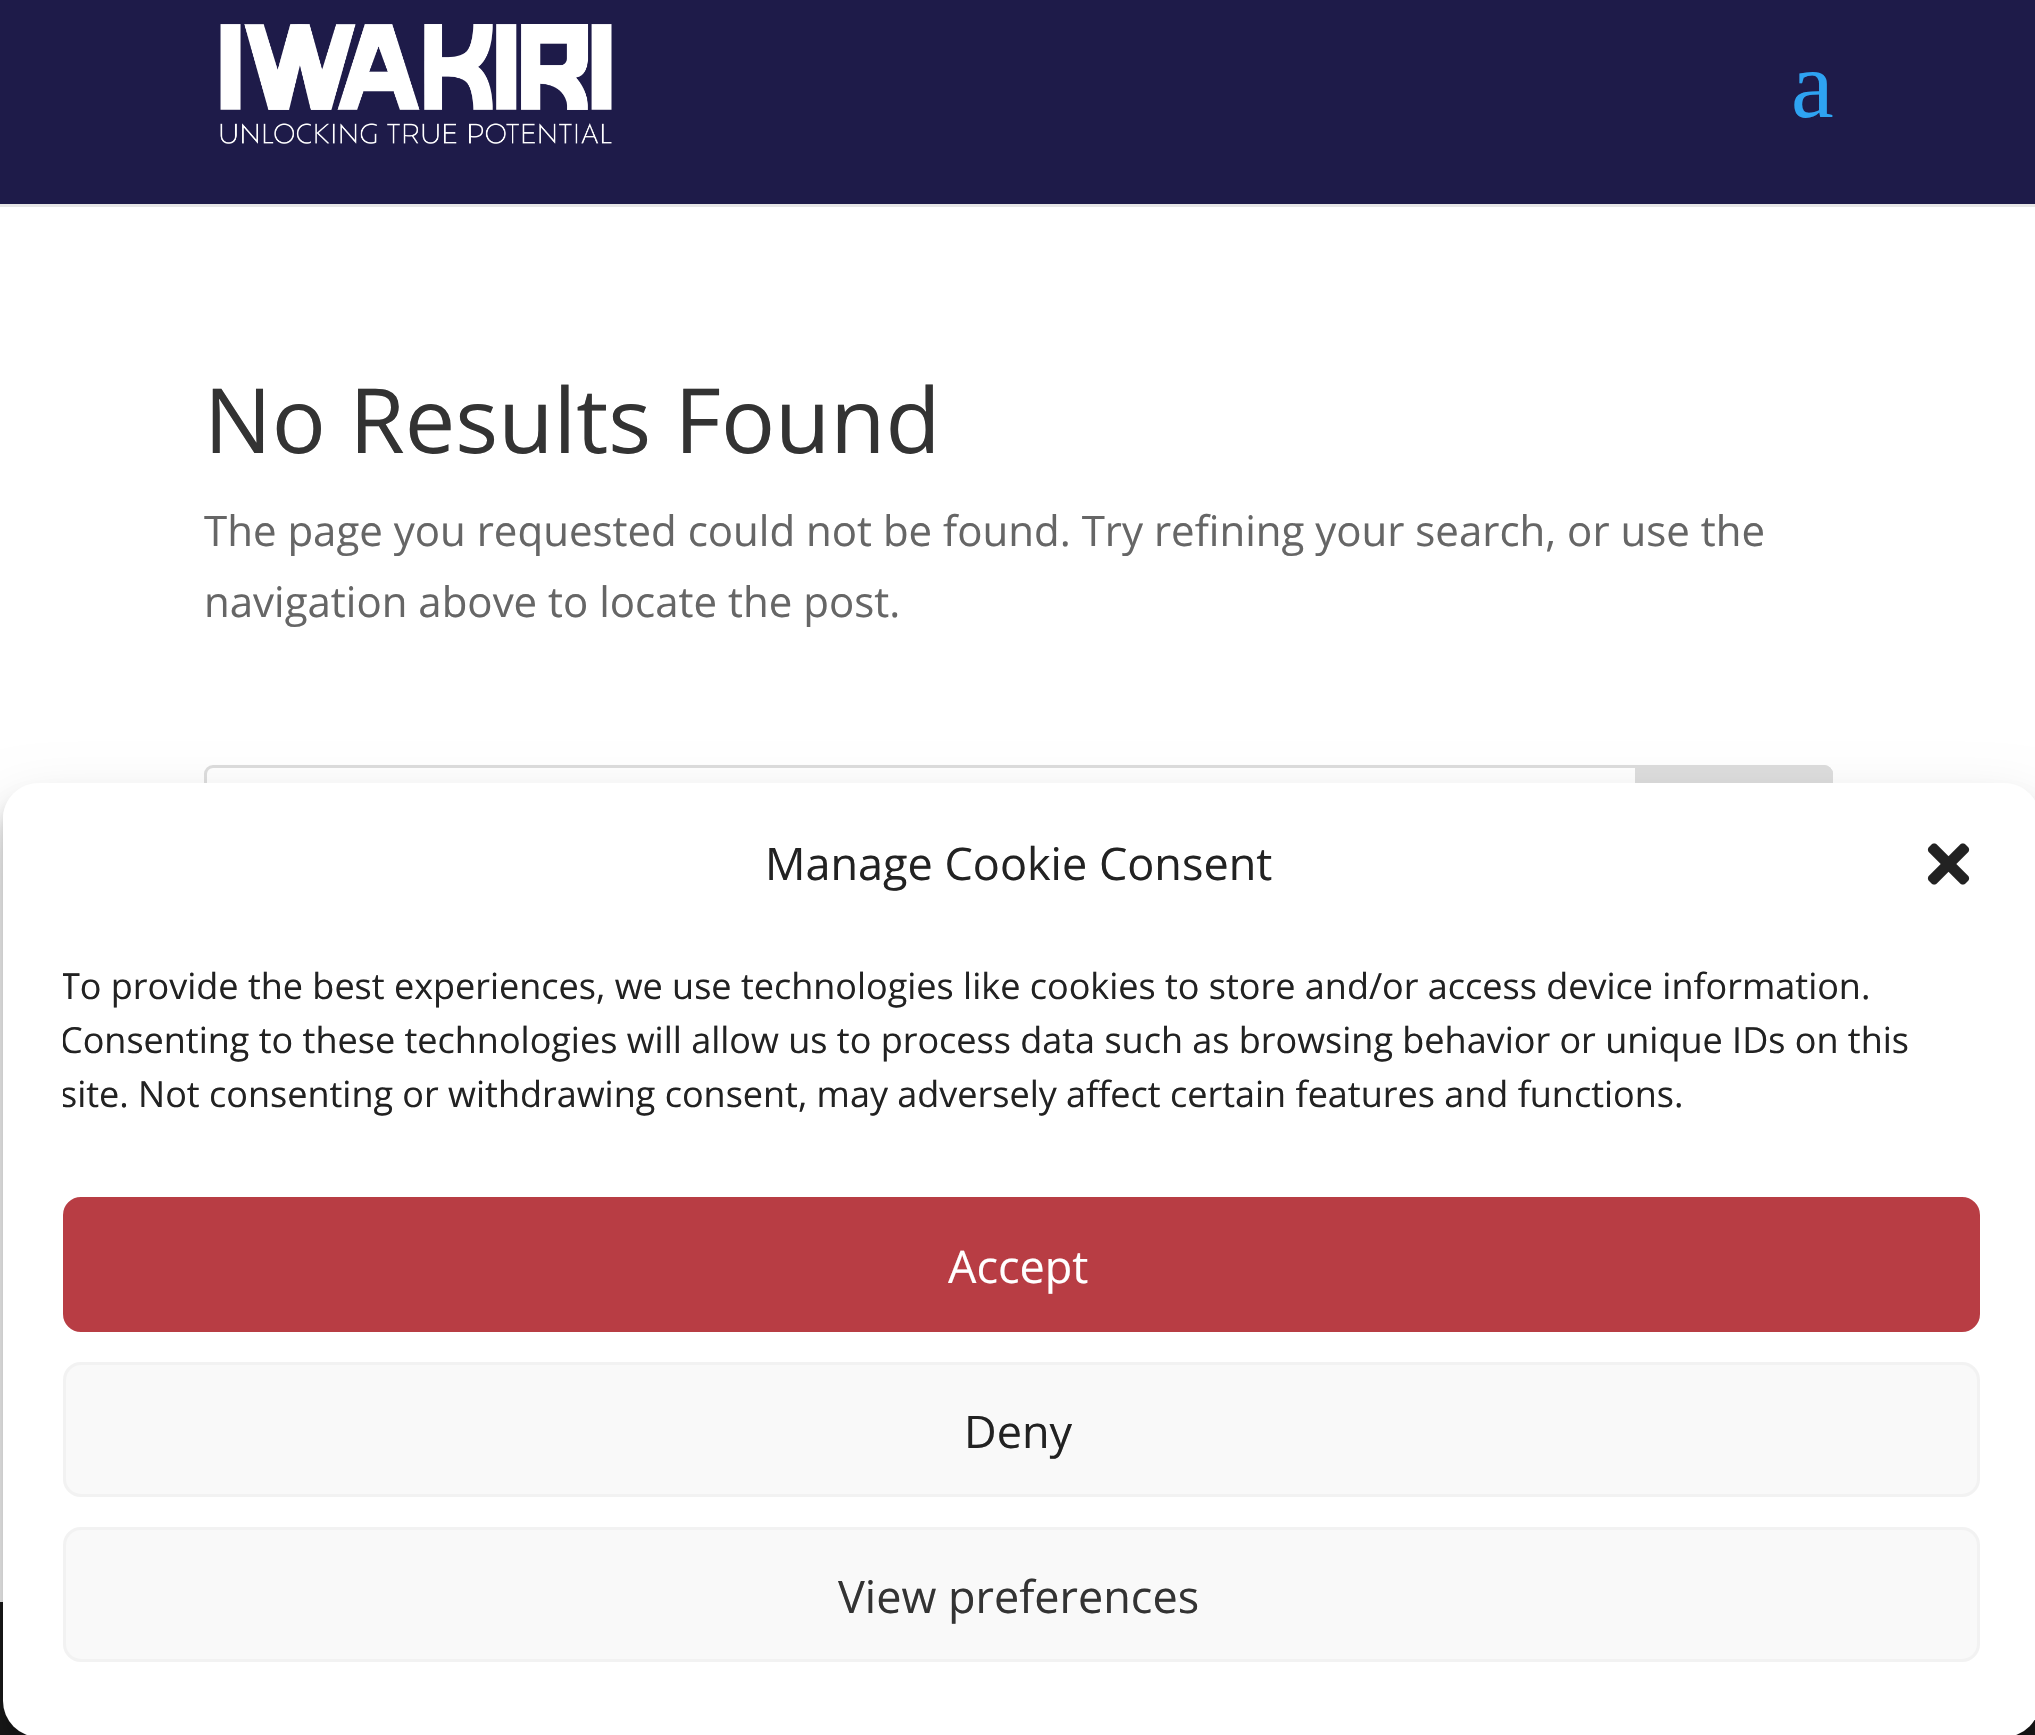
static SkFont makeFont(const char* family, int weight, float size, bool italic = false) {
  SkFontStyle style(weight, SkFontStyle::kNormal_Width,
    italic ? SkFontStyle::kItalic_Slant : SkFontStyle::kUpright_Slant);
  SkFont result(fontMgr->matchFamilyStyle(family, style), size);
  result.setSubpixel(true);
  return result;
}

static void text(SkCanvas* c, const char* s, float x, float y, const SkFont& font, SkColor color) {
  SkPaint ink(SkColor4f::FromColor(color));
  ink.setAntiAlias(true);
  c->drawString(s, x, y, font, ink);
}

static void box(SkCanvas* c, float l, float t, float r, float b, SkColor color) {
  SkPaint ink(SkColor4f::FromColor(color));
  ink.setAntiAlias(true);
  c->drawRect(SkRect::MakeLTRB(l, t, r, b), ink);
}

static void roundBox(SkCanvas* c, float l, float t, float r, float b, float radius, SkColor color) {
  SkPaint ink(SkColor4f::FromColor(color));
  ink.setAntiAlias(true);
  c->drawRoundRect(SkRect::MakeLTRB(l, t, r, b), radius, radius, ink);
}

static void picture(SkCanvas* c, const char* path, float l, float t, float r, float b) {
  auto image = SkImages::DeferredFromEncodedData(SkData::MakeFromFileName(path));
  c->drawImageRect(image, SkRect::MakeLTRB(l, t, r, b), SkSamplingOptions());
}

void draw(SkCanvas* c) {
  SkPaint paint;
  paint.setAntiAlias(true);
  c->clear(0xffffffff);
  box(c, 0, 204, 2035, 207, 0xffe6e6e6);
  box(c, 0, 0, 2035, 204, 0xff1e1b49);
  picture(c, "img_01.png", 220, 24, 612, 144);
  SkFont face1 = makeFont("Liberation Serif", 400, 96);
  text(c, "a", 1791, 117, face1, 0xff2ea3f2);
  SkFont face2 = makeFont("Open Sans", 400, 90);
  text(c, "No Results Found", 204, 453, face2, 0xff333333);
  SkFont face3 = makeFont("Open Sans", 400, 42);
  text(c, "The page you requested could not be found. Try refining your search, or use the", 204, 546, face3, 0xff666666);
  text(c, "navigation above to locate the post.", 204, 617, face3, 0xff666666);
  paint.setStyle(SkPaint::kStroke_Style);
  paint.setStrokeWidth(3);
  paint.setColor(0xffdddddd);
  c->drawRoundRect(SkRect::MakeLTRB(205.5f, 766.5f, 1831.5f, 883.5f), 7.5f, 7.5f, paint);
  paint.setStyle(SkPaint::kFill_Style);
  c->drawPath(SkPathBuilder().moveTo(1636.5f, 766.5f).lineTo(1824, 766.5f).cubicTo(1828, 766.5f, 1831.5f, 770, 1831.5f, 774).lineTo(1831.5f, 876).cubicTo(1831.5f, 880, 1828, 883.5f, 1824, 883.5f).lineTo(1636.5f, 883.5f).close().detach(), paint);
  paint.setStyle(SkPaint::kStroke_Style);
  c->drawPath(SkPathBuilder().moveTo(1636.5f, 766.5f).lineTo(1824, 766.5f).cubicTo(1828, 766.5f, 1831.5f, 770, 1831.5f, 774).lineTo(1831.5f, 876).cubicTo(1831.5f, 880, 1828, 883.5f, 1824, 883.5f).lineTo(1636.5f, 883.5f).close().detach(), paint);
  box(c, 0, 1602, 2035, 1735, 0xff1a1a1a);
  c->save();
  c->clipPath(SkPathBuilder(SkPathFillType::kEvenOdd).moveTo(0, 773).lineTo(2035, 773).lineTo(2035, 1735).lineTo(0, 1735).close().moveTo(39, 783).lineTo(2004, 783).cubicTo(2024, 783, 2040, 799, 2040, 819).lineTo(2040, 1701).cubicTo(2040, 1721, 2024, 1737, 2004, 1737).lineTo(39, 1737).cubicTo(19, 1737, 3, 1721, 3, 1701).lineTo(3, 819).cubicTo(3, 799, 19, 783, 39, 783).close().detach(), true);
  paint.setStyle(SkPaint::kFill_Style);
  paint.setColor(0x3b000000);
  paint.setMaskFilter(SkMaskFilter::MakeBlur(kNormal_SkBlurStyle, 9));
  c->drawRoundRect(SkRect::MakeLTRB(3, 801, 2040, 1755), 36, 36, paint);
  paint.setMaskFilter(nullptr);
  c->restore();
  c->save();
  c->clipPath(SkPathBuilder(SkPathFillType::kEvenOdd).moveTo(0, 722).lineTo(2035, 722).lineTo(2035, 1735).lineTo(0, 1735).close().moveTo(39, 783).lineTo(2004, 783).cubicTo(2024, 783, 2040, 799, 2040, 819).lineTo(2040, 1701).cubicTo(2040, 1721, 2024, 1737, 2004, 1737).lineTo(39, 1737).cubicTo(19, 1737, 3, 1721, 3, 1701).lineTo(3, 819).cubicTo(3, 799, 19, 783, 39, 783).close().detach(), true);
  paint.setColor(0x30000000);
  paint.setMaskFilter(SkMaskFilter::MakeBlur(kNormal_SkBlurStyle, 30));
  c->drawRoundRect(SkRect::MakeLTRB(3, 813, 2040, 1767), 36, 36, paint);
  paint.setMaskFilter(nullptr);
  c->restore();
  roundBox(c, 3, 783, 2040, 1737, 36, 0xffffffff);
  SkFont face4 = makeFont("Open Sans", 400, 45);
  text(c, "Manage Cookie Consent", 765, 880, face4, 0xff222222);
  picture(c, "img_02.png", 1927, 843, 1970, 885);
  c->save();
  c->clipRect(SkRect::MakeLTRB(63, 960, 1980, 1137));
  SkFont face5 = makeFont("Open Sans", 400, 36);
  text(c, "To provide the best experiences, we use technologies like cookies to store and/or access device information.", 60, 999, face5, 0xff222222);
  text(c, "Consenting to these technologies will allow us to process data such as browsing behavior or unique IDs on this", 60, 1053, face5, 0xff222222);
  text(c, "site. Not consenting or withdrawing consent, may adversely affect certain features and functions.", 60, 1107, face5, 0xff222222);
  c->restore();
  paint.setColor(0xffb83d44);
  c->drawRoundRect(SkRect::MakeLTRB(64.5f, 1198.5f, 1978.5f, 1330.5f), 16.5f, 16.5f, paint);
  paint.setStyle(SkPaint::kStroke_Style);
  c->drawRoundRect(SkRect::MakeLTRB(64.5f, 1198.5f, 1978.5f, 1330.5f), 16.5f, 16.5f, paint);
  text(c, "Accept", 948, 1283, face4, 0xffffffff);
  paint.setStyle(SkPaint::kFill_Style);
  paint.setColor(0xfff9f9f9);
  c->drawRoundRect(SkRect::MakeLTRB(64.5f, 1363.5f, 1978.5f, 1495.5f), 16.5f, 16.5f, paint);
  paint.setStyle(SkPaint::kStroke_Style);
  paint.setColor(0xfff2f2f2);
  c->drawRoundRect(SkRect::MakeLTRB(64.5f, 1363.5f, 1978.5f, 1495.5f), 16.5f, 16.5f, paint);
  text(c, "Deny", 964, 1448, face4, 0xff222222);
  paint.setStyle(SkPaint::kFill_Style);
  paint.setColor(0xfff9f9f9);
  c->drawRoundRect(SkRect::MakeLTRB(64.5f, 1528.5f, 1978.5f, 1660.5f), 16.5f, 16.5f, paint);
  paint.setStyle(SkPaint::kStroke_Style);
  paint.setColor(0xfff2f2f2);
  c->drawRoundRect(SkRect::MakeLTRB(64.5f, 1528.5f, 1978.5f, 1660.5f), 16.5f, 16.5f, paint);
  text(c, "View preferences", 838, 1613, face4, 0xff333333);
}
